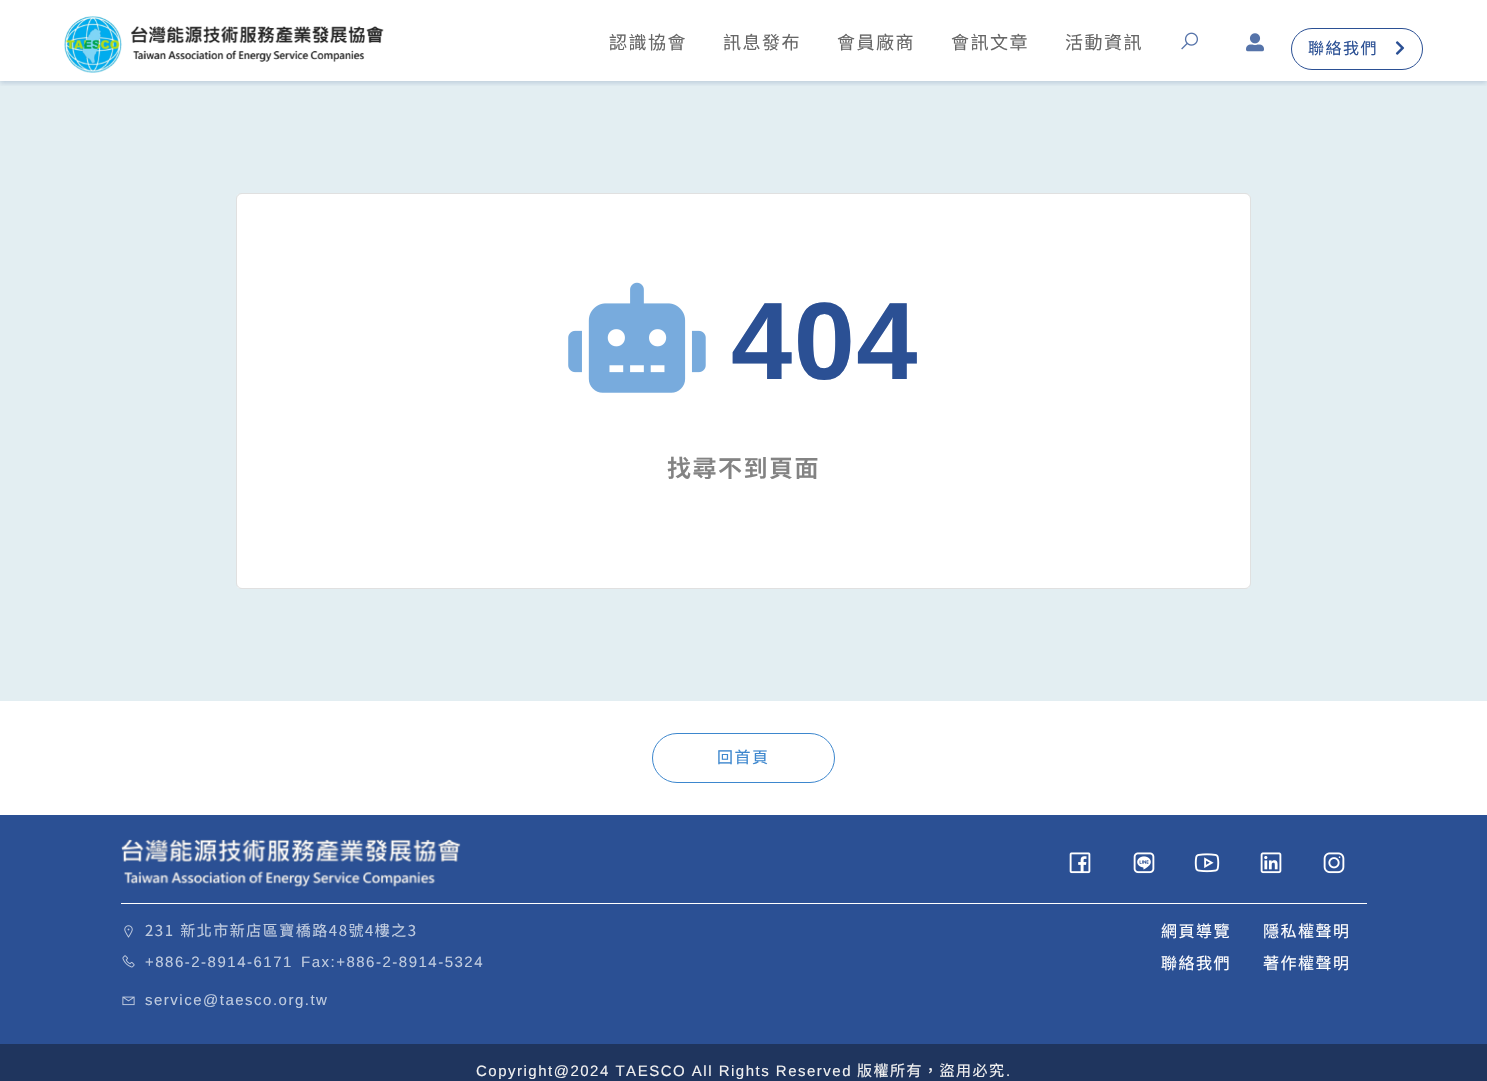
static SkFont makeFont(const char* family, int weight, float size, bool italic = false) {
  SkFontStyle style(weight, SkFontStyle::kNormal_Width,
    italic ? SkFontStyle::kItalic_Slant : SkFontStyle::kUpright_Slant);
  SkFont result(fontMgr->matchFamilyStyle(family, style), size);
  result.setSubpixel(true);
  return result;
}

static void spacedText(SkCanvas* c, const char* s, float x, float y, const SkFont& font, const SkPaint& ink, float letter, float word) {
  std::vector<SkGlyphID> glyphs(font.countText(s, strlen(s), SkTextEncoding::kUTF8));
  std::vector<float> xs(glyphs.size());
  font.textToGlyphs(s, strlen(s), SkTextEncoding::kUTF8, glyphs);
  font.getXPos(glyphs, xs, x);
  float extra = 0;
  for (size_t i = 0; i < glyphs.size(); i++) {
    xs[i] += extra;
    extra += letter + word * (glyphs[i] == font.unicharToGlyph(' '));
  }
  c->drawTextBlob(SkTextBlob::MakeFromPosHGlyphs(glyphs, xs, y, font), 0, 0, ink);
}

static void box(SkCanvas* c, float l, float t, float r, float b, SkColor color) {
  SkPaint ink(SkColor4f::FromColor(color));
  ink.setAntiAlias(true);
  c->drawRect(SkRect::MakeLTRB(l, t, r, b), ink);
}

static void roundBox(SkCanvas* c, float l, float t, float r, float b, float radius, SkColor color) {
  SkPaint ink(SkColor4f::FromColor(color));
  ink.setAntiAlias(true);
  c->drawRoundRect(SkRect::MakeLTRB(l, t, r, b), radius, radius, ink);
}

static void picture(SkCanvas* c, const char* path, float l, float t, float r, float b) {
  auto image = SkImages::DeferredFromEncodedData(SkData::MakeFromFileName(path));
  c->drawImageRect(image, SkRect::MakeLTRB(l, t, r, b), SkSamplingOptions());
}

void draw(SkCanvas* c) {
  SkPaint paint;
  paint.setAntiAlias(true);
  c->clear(0xffffffff);
  box(c, 0, 81, 1487, 701, 0xffe3eef2);
  c->save();
  c->clipRect(SkRect::MakeLTRB(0, 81, 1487, 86));
  paint.setColor(0x3325447d);
  paint.setMaskFilter(SkMaskFilter::MakeBlur(kNormal_SkBlurStyle, 2.5f));
  c->drawRect(SkRect::MakeLTRB(0, 2, 1487, 83), paint);
  paint.setMaskFilter(nullptr);
  c->restore();
  picture(c, "img_01.png", 64, 16, 384, 73);
  SkFont face1 = makeFont("Noto Sans TC", 400, 18);
  paint.setColor(0xff666666);
  spacedText(c, "認識協會", 609, 49, face1, paint, 1.5f, 0);
  spacedText(c, "訊息發布", 723, 49, face1, paint, 1.5f, 0);
  spacedText(c, "會員廠商", 837, 49, face1, paint, 1.5f, 0);
  spacedText(c, "會訊文章", 951, 49, face1, paint, 1.5f, 0);
  spacedText(c, "活動資訊", 1065, 49, face1, paint, 1.5f, 0);
  picture(c, "img_02.png", 1181, 32, 1198, 50);
  picture(c, "img_03.png", 1246, 33, 1264, 52);
  paint.setStyle(SkPaint::kStroke_Style);
  paint.setStrokeWidth(1);
  paint.setColor(0xff2b5094);
  c->drawRoundRect(SkRect::MakeLTRB(1291.5f, 28.5f, 1422.5f, 69.5f), 20.5f, 20.5f, paint);
  SkFont face2 = makeFont("Noto Sans TC", 400, 16);
  paint.setStyle(SkPaint::kFill_Style);
  spacedText(c, "聯絡我們", 1308, 54, face2, paint, 1.5f, 0);
  picture(c, "img_04.png", 1395, 41, 1405, 55);
  roundBox(c, 236, 193, 1251, 589, 6, 0xffffffff);
  paint.setStyle(SkPaint::kStroke_Style);
  paint.setColor(0x1f000000);
  c->drawRoundRect(SkRect::MakeLTRB(236.5f, 193.5f, 1250.5f, 588.5f), 5.5f, 5.5f, paint);
  picture(c, "img_05.png", 568, 282, 706, 393);
  SkFont face3 = makeFont("Liberation Sans", 700, 110);
  paint.setStyle(SkPaint::kFill_Style);
  paint.setColor(0xff2b5094);
  spacedText(c, "404", 731, 379, face3, paint, 1.5f, 0);
  SkFont face4 = makeFont("Noto Sans TC", 600, 24);
  paint.setColor(0xff838383);
  spacedText(c, "找尋不到頁面", 667, 477, face4, paint, 1.5f, 0);
  paint.setStyle(SkPaint::kStroke_Style);
  paint.setColor(0xff3d87ce);
  c->drawRoundRect(SkRect::MakeLTRB(652.5f, 733.5f, 834.5f, 782.5f), 24.5f, 24.5f, paint);
  paint.setStyle(SkPaint::kFill_Style);
  spacedText(c, "回首頁", 717, 763, face2, paint, 1.5f, 0);
  box(c, 0, 815, 1487, 1044, 0xff2b5094);
  box(c, 121, 903, 1367, 904, 0xffffffff);
  picture(c, "img_06.png", 121, 839, 461, 887);
  picture(c, "img_07.png", 1069, 852, 1091, 874);
  picture(c, "img_08.png", 1133, 852, 1155, 874);
  picture(c, "img_09.png", 1194, 853, 1220, 873);
  picture(c, "img_10.png", 1260, 852, 1282, 874);
  picture(c, "img_11.png", 1323, 852, 1345, 874);
  picture(c, "img_12.png", 124, 925, 133, 938);
  SkFont face5 = makeFont("Noto Sans TC", 400, 15);
  paint.setColor(0xffbfcbdf);
  spacedText(c, "231 新北市新店區寶橋路48號4樓之3", 145, 936, face5, paint, 1.5f, 1);
  picture(c, "img_13.png", 122, 955, 135, 968);
  SkFont face6 = makeFont("Liberation Sans", 400, 15);
  spacedText(c, "+886-2-8914-6171", 145, 967, face6, paint, 1.5f, 0);
  spacedText(c, "Fax:+886-2-8914-5324", 301, 967, face6, paint, 1.5f, 0);
  picture(c, "img_14.png", 122, 996, 135, 1006);
  spacedText(c, "service@taesco.org.tw", 145, 1005, face6, paint, 1.5f, 0);
  paint.setColor(0xffffffff);
  spacedText(c, "網頁導覽", 1161, 937, face2, paint, 1.5f, 0);
  spacedText(c, "聯絡我們", 1161, 969, face2, paint, 1.5f, 0);
  spacedText(c, "隱私權聲明", 1263, 937, face2, paint, 1.5f, 0);
  spacedText(c, "著作權聲明", 1263, 969, face2, paint, 1.5f, 0);
  box(c, 0, 1044, 1487, 1081, 0xff1f355e);
  paint.setColor(0xfff1f1f1);
  spacedText(c, "Copyright@2024 TAESCO All Rights Reserved", 476, 1076, face6, paint, 1.5f, 0);
  spacedText(c, "版權所有，盜用必究", 857, 1076, face5, paint, 1.5f, 0);
  spacedText(c, ".", 1006, 1076, face6, paint, 1.5f, 0);
}
